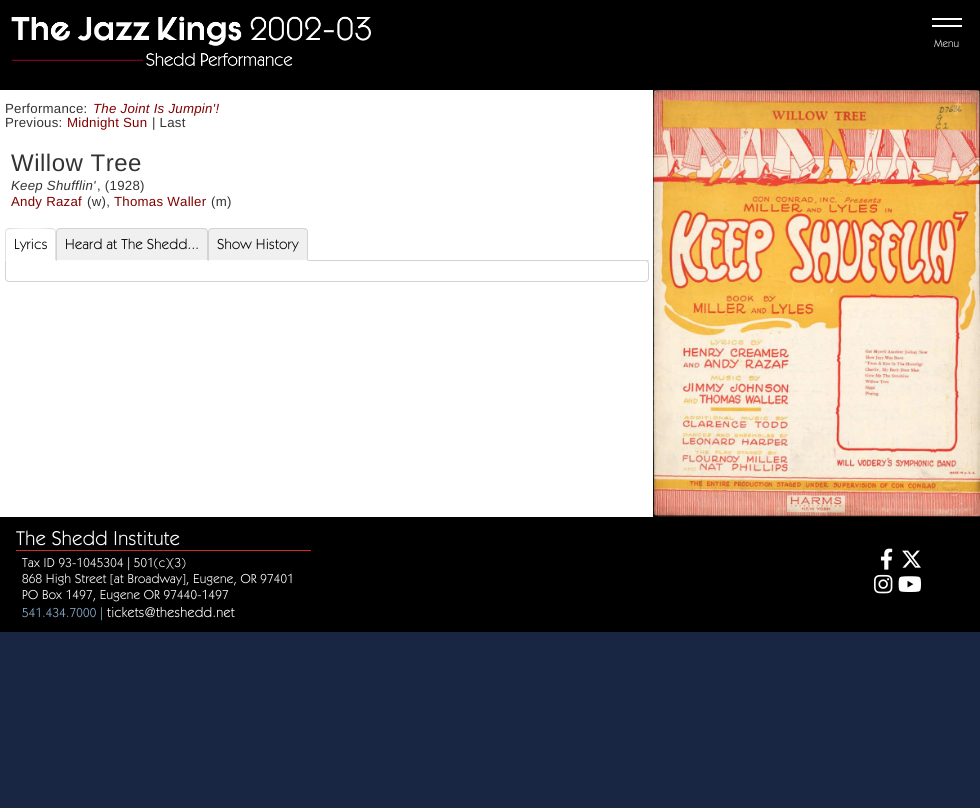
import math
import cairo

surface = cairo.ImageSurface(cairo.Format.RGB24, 980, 808)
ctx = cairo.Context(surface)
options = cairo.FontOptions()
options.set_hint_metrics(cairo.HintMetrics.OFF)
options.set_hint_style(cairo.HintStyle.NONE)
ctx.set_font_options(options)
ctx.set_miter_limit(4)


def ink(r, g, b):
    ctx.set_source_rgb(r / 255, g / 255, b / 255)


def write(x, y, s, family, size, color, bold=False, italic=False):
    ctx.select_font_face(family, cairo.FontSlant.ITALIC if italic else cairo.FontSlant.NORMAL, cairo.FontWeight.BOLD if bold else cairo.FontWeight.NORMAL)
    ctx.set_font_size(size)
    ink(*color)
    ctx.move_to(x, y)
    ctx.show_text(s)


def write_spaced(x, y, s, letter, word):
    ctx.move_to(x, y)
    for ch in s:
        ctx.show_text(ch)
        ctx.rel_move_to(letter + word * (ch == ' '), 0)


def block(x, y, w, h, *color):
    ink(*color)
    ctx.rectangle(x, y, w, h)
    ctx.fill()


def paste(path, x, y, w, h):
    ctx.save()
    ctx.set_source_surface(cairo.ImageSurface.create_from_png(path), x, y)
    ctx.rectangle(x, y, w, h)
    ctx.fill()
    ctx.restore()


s1 = dict(family="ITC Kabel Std", size=11, color=(230, 230, 230))

ink(24, 37, 67)
ctx.paint()
block(0, 0, 980, 90, 0, 0, 0)
paste("pic1.png", 11, 16, 360, 50)
block(932, 18, 30, 2, 255, 255, 255)
block(932, 25, 30, 2, 255, 255, 255)
write(934, 47, "Menu", **s1)
block(0, 90, 653, 427, 255, 255, 255)
ctx.select_font_face("Liberation Sans")
ctx.set_font_size(13.25)
ink(51, 51, 51)
write_spaced(5, 113, "Performance:", 0.25, 0)
ctx.select_font_face("Liberation Sans", cairo.FontSlant.ITALIC)
ink(128, 0, 0)
write_spaced(93, 113, "The Joint Is Jumpin'!", 0.25, 0)
ctx.select_font_face("Liberation Sans")
ink(51, 51, 51)
write_spaced(5, 127, "Previous:", 0.25, 0)
ink(128, 0, 0)
write_spaced(67, 127, "Midnight Sun", 0.25, 0)
ink(51, 51, 51)
write_spaced(152, 127, "| Last", 0.25, 0)
ctx.set_font_size(24)
write_spaced(11, 171, "Willow Tree", 0.5, 0)
ctx.select_font_face("Liberation Sans", cairo.FontSlant.ITALIC)
ctx.set_font_size(13.25)
write_spaced(11, 190, "Keep Shufflin'", 0.25, 0)
ctx.select_font_face("Liberation Sans")
write_spaced(97, 190, ", (1928)", 0.25, 0)
ink(128, 0, 0)
write_spaced(11, 206, "Andy Razaf", 0.25, 0)
ink(51, 51, 51)
write_spaced(87, 206, "(w),", 0.25, 0)
ink(128, 0, 0)
write_spaced(114, 206, "Thomas Waller", 0.25, 0)
ink(51, 51, 51)
write_spaced(211, 206, "(m)", 0.25, 0)
block(645, 260, 4, 1, 222, 226, 230)
ctx.new_path()
ctx.move_to(5.5, 260.5)
ctx.line_to(645, 260.5)
ctx.curve_to(647, 260.5, 648.5, 262, 648.5, 264)
ctx.line_to(648.5, 278)
ctx.curve_to(648.5, 280, 647, 281.5, 645, 281.5)
ctx.line_to(9, 281.5)
ctx.curve_to(7, 281.5, 5.5, 280, 5.5, 278)
ctx.close_path()
ink(211, 211, 211)
ctx.set_line_width(1)
ctx.stroke()
ink(255, 255, 255)
ctx.new_path()
ctx.move_to(9, 228)
ctx.line_to(52, 228)
ctx.curve_to(54, 228, 56, 230, 56, 232)
ctx.line_to(56, 261)
ctx.line_to(5, 261)
ctx.line_to(5, 232)
ctx.curve_to(5, 230, 7, 228, 9, 228)
ctx.close_path()
ctx.fill()
ink(222, 226, 230)
ctx.new_path()
ctx.move_to(9, 228)
ctx.line_to(6, 229)
ctx.line_to(7, 230)
ctx.curve_to(8, 228, 53, 228, 54, 230)
ctx.line_to(55, 229)
ctx.line_to(52, 228)
ctx.close_path()
ctx.fill()
ctx.new_path()
ctx.move_to(56, 261)
ctx.line_to(56, 232)
ctx.curve_to(56, 231, 55.5, 230, 55, 229)
ctx.line_to(54, 230)
ctx.curve_to(55, 230, 55, 231, 55, 232)
ctx.line_to(55, 260)
ctx.close_path()
ctx.fill()
ink(255, 255, 255)
ctx.new_path()
ctx.move_to(56, 261)
ctx.line_to(55, 260)
ctx.line_to(6, 260)
ctx.line_to(5, 261)
ctx.close_path()
ctx.fill()
ink(222, 226, 230)
ctx.new_path()
ctx.move_to(5, 261)
ctx.line_to(6, 260)
ctx.line_to(6, 232)
ctx.curve_to(6, 231, 6, 230, 7, 230)
ctx.line_to(6, 229)
ctx.curve_to(5.5, 230, 5, 231, 5, 232)
ctx.close_path()
ctx.fill()
ctx.select_font_face("ITC Kabel Std")
ctx.set_font_size(14.5)
ink(0, 0, 0)
write_spaced(14, 249, "Lyrics", 0.25, 0)
ink(240, 240, 240)
ctx.new_path()
ctx.move_to(60, 228)
ctx.line_to(204, 228)
ctx.curve_to(206, 228, 208, 230, 208, 232)
ctx.line_to(208, 261)
ctx.line_to(56, 261)
ctx.line_to(56, 232)
ctx.curve_to(56, 230, 58, 228, 60, 228)
ctx.close_path()
ctx.fill()
ink(211, 211, 211)
ctx.new_path()
ctx.move_to(60, 228)
ctx.line_to(57, 229)
ctx.line_to(58, 230)
ctx.line_to(60, 229)
ctx.line_to(204, 229)
ctx.line_to(206, 230)
ctx.line_to(207, 229)
ctx.line_to(204, 228)
ctx.close_path()
ctx.fill()
ctx.new_path()
ctx.move_to(208, 261)
ctx.line_to(208, 232)
ctx.curve_to(208, 231, 207.5, 230, 207, 229)
ctx.line_to(206, 230)
ctx.curve_to(207, 230, 207, 231, 207, 232)
ctx.line_to(207, 260)
ctx.close_path()
ctx.fill()
ink(255, 255, 255)
ctx.new_path()
ctx.move_to(208, 261)
ctx.line_to(207, 260)
ctx.line_to(57, 260)
ctx.line_to(56, 261)
ctx.close_path()
ctx.fill()
ink(211, 211, 211)
ctx.new_path()
ctx.move_to(56, 261)
ctx.line_to(57, 260)
ctx.line_to(57, 232)
ctx.curve_to(57, 231, 57, 230, 58, 230)
ctx.line_to(57, 229)
ctx.curve_to(56.5, 230, 56, 231, 56, 232)
ctx.close_path()
ctx.fill()
ink(0, 0, 0)
write_spaced(65, 249, "Heard at The Shedd...", 0.25, 0)
ink(240, 240, 240)
ctx.new_path()
ctx.move_to(212, 228)
ctx.line_to(304, 228)
ctx.curve_to(306, 228, 308, 230, 308, 232)
ctx.line_to(308, 261)
ctx.line_to(208, 261)
ctx.line_to(208, 232)
ctx.curve_to(208, 230, 210, 228, 212, 228)
ctx.close_path()
ctx.fill()
ink(211, 211, 211)
ctx.new_path()
ctx.move_to(212, 228)
ctx.line_to(209, 229)
ctx.line_to(210, 230)
ctx.line_to(212, 229)
ctx.line_to(304, 229)
ctx.line_to(306, 230)
ctx.line_to(307, 229)
ctx.line_to(304, 228)
ctx.close_path()
ctx.fill()
ctx.new_path()
ctx.move_to(308, 261)
ctx.line_to(308, 232)
ctx.curve_to(308, 231, 307.5, 230, 307, 229)
ctx.line_to(306, 230)
ctx.curve_to(307, 230, 307, 231, 307, 232)
ctx.line_to(307, 260)
ctx.close_path()
ctx.fill()
ink(255, 255, 255)
ctx.new_path()
ctx.move_to(308, 261)
ctx.line_to(307, 260)
ctx.line_to(209, 260)
ctx.line_to(208, 261)
ctx.close_path()
ctx.fill()
ink(211, 211, 211)
ctx.new_path()
ctx.move_to(208, 261)
ctx.line_to(209, 260)
ctx.line_to(209, 232)
ctx.curve_to(209, 231, 209, 230, 210, 230)
ctx.line_to(209, 229)
ctx.curve_to(208.5, 230, 208, 231, 208, 232)
ctx.close_path()
ctx.fill()
ink(0, 0, 0)
write_spaced(217, 249, "Show History", 0.25, 0)
paste("pic2.png", 653, 90, 327, 427)
block(0, 517, 980, 115, 0, 0, 0)
block(16, 550, 295, 1, 217, 38, 42)
ctx.set_font_size(20)
ink(255, 255, 255)
write_spaced(16, 545, "The Shedd Institute", 0.4, 0)
ctx.set_font_size(13)
write_spaced(22, 567, "Tax ID 93-1045304 | 501(c)(3)", 0.25, 0)
write_spaced(22, 583, "868 High Street [at Broadway], Eugene, OR 97401", 0.25, 0)
write_spaced(22, 599, "PO Box 1497, Eugene OR 97440-1497", 0.25, 0)
ink(142, 180, 211)
write_spaced(22, 617, "541.434.7000 |", 0.25, 0)
ctx.set_font_size(14)
ink(255, 255, 255)
write_spaced(107, 617, "tickets@theshedd.net", 0.25, 0)
paste("pic3.png", 880, 548, 13, 22)
paste("pic4.png", 902, 550, 19, 18)
paste("pic5.png", 874, 574, 19, 20)
paste("pic6.png", 898, 576, 23, 16)
surface.write_to_png("screenshot.png")
